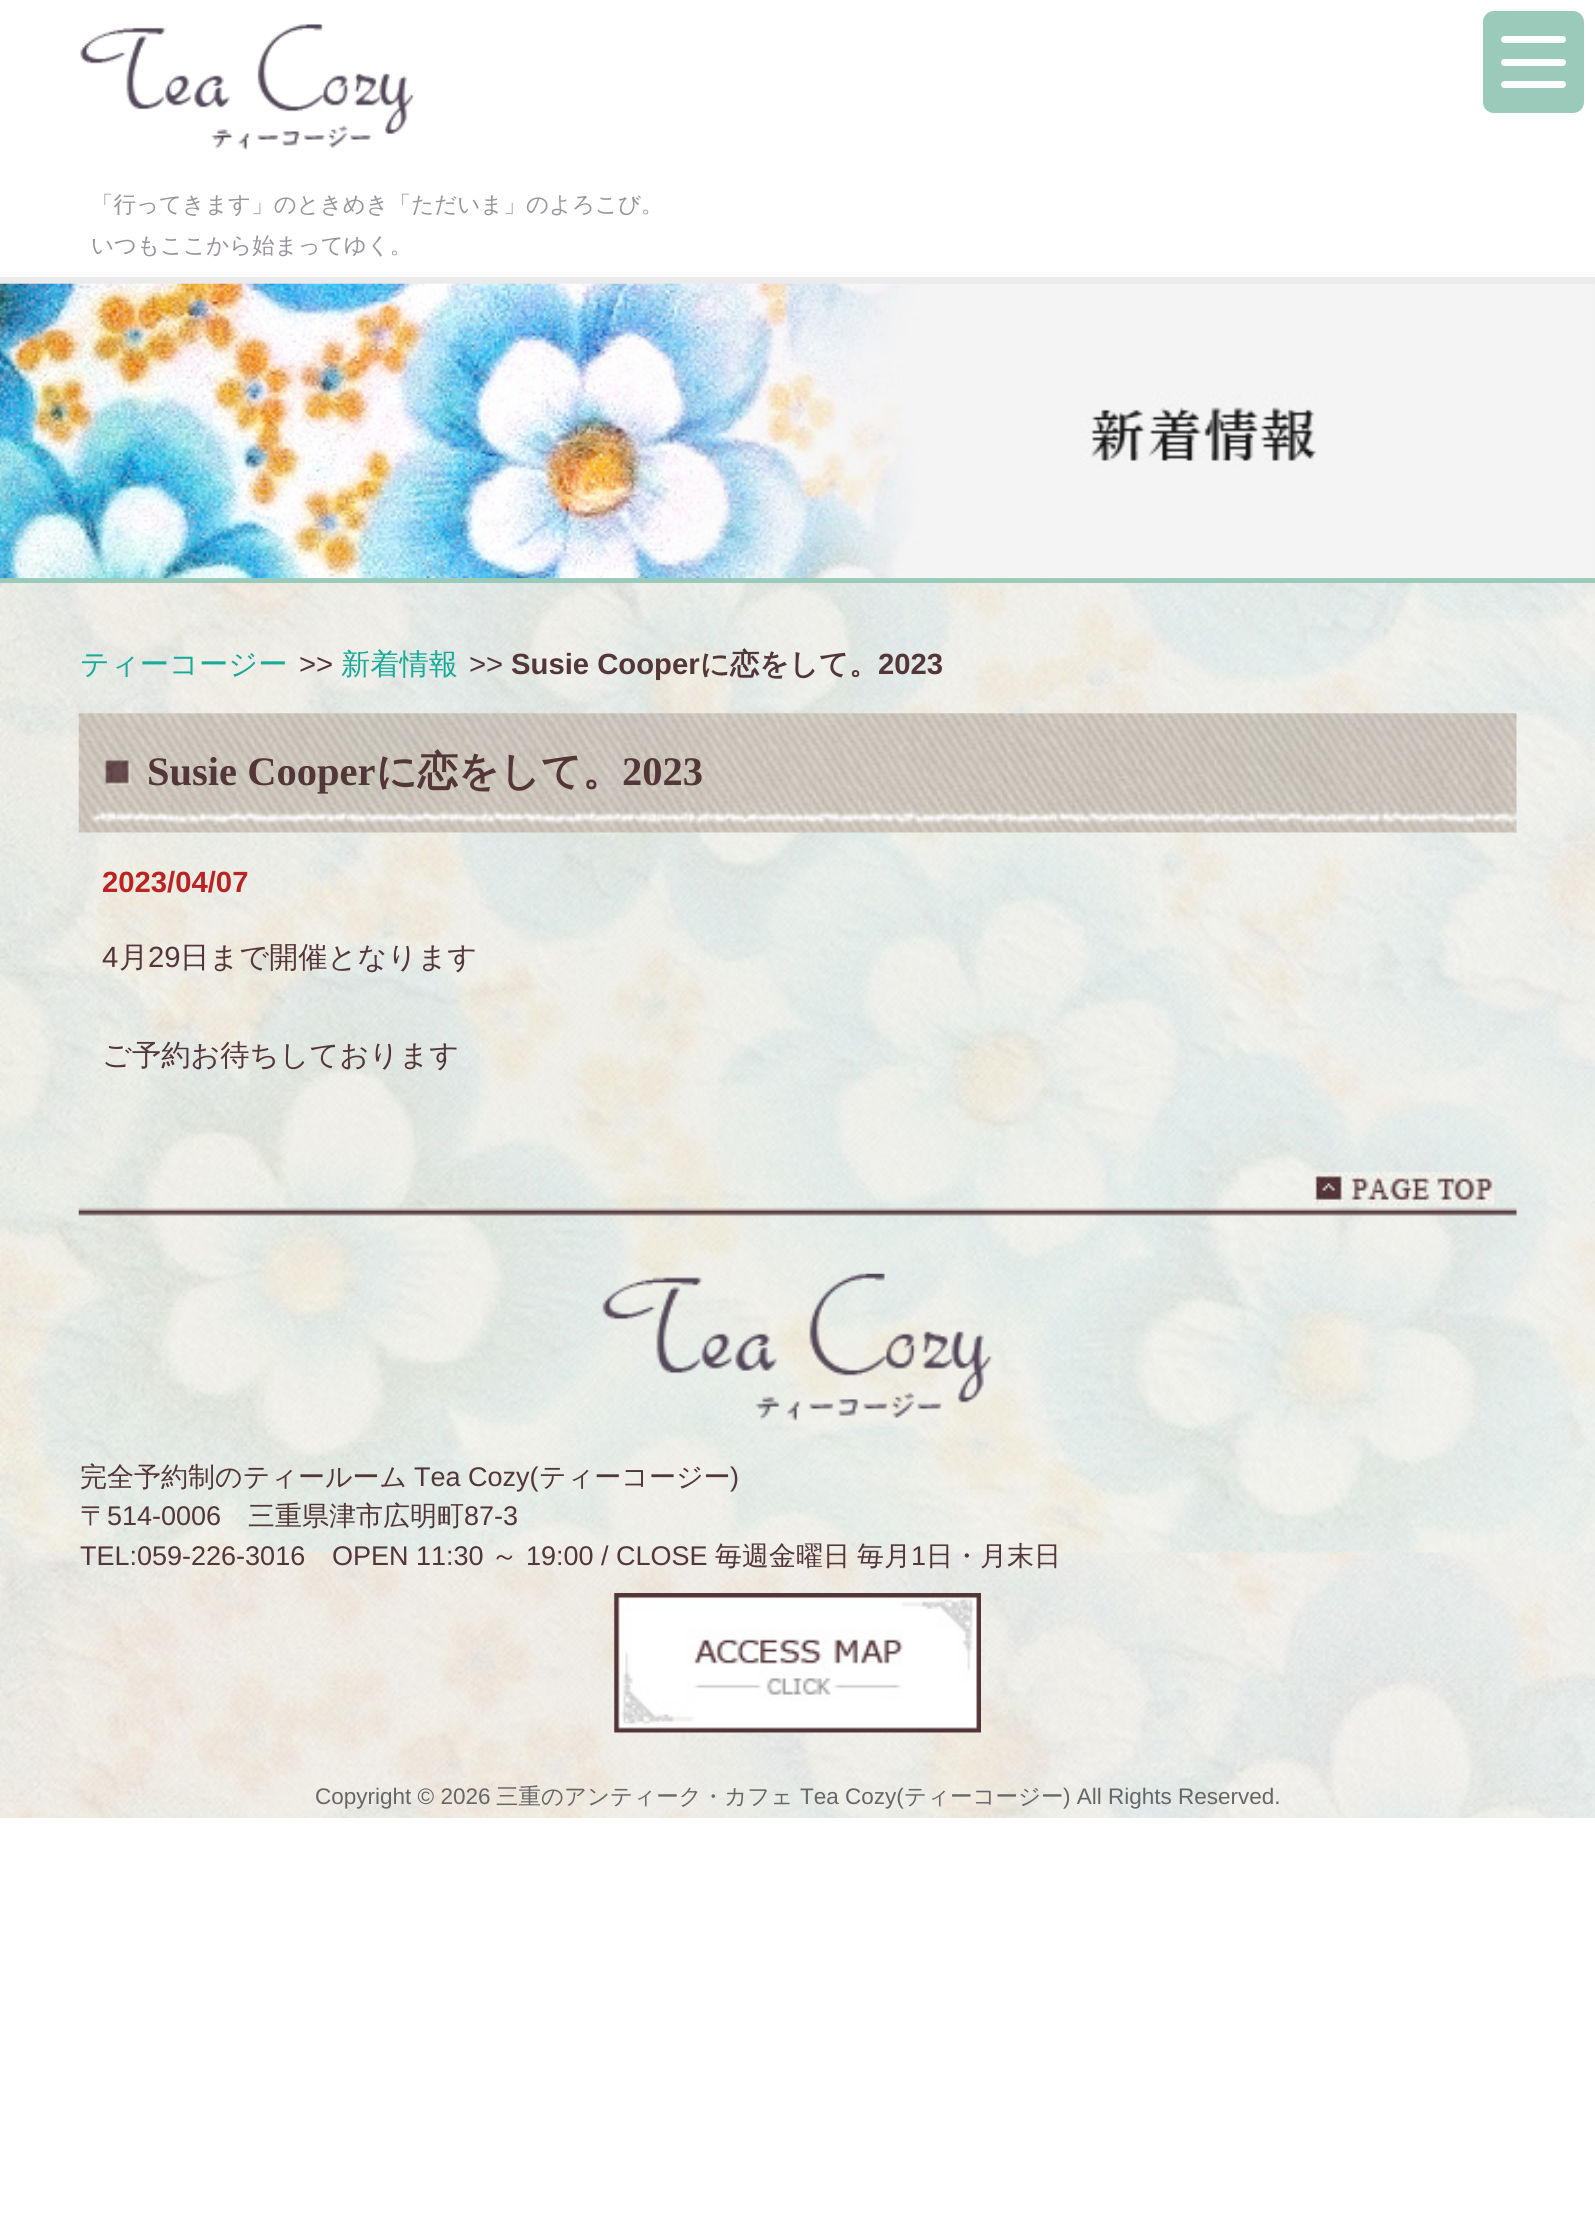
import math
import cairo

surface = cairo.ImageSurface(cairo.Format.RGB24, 1595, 2235)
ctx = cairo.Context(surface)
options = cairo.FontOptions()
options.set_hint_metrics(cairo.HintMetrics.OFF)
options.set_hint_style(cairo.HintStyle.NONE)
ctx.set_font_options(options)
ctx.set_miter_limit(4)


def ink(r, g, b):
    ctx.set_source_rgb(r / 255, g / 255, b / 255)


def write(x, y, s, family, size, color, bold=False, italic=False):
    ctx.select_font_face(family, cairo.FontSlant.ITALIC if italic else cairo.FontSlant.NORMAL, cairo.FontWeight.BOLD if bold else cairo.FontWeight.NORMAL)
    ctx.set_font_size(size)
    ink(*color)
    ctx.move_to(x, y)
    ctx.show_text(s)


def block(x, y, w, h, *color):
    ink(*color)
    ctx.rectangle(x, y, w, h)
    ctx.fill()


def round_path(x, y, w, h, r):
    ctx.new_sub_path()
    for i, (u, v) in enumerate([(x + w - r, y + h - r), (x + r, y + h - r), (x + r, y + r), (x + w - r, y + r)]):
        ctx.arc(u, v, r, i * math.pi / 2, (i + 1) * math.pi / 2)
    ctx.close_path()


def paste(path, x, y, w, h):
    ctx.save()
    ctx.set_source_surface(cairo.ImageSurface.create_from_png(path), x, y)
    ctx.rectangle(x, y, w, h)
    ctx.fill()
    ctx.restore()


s1 = dict(family="WenQuanYi Zen Hei Medium", size=22.5, color=(153, 146, 156))
s2 = dict(family="WenQuanYi Zen Hei Medium", size=29.25, color=(23, 170, 153))
s3 = dict(family="Liberation Sans", size=29.25, color=(83, 54, 56))
s4 = dict(family="Liberation Sans", size=29.25, color=(83, 54, 56), bold=True)
s5 = dict(family="WenQuanYi Zen Hei", size=29.25, color=(83, 54, 56), bold=True)
s6 = dict(family="Liberation Serif", size=40.5, color=(83, 54, 56), bold=True)
s7 = dict(family="WenQuanYi Zen Hei", size=40.5, color=(83, 54, 56), bold=True)
s8 = dict(family="Liberation Sans", size=29.25, color=(187, 35, 35), bold=True)
s9 = dict(family="WenQuanYi Zen Hei Medium", size=29.25, color=(83, 54, 56))
s10 = dict(family="WenQuanYi Zen Hei Medium", size=27, color=(83, 54, 56))
s11 = dict(family="Liberation Sans", size=27, color=(83, 54, 56))
s12 = dict(family="Liberation Sans", size=22.5, color=(102, 102, 102))
s13 = dict(family="WenQuanYi Zen Hei Medium", size=22.5, color=(102, 102, 102))

ink(255, 255, 255)
ctx.paint()
ink(154, 202, 186)
round_path(1483, 11, 101, 102, 11)
ctx.fill()
ink(255, 255, 255)
round_path(1501, 36, 65, 7, 3.5)
ctx.fill()
round_path(1501, 59, 65, 7, 3.5)
ctx.fill()
round_path(1501, 81, 65, 7, 3.5)
ctx.fill()
paste("pic1.png", 0, 583, 1595, 1235)
paste("pic2.png", 80, 24, 335, 126)
write(91, 212, "「行ってきます」のときめき「ただいま」のよろこび。", **s1)
write(91, 253, "いつもここから始まってゆく。", **s1)
block(0, 277, 1595, 7, 235, 235, 235)
block(0, 578, 1595, 5, 154, 202, 186)
paste("pic3.png", 0, 283, 1595, 296)
paste("pic4.png", 78, 1207, 1439, 9)
write(80, 674, "ティーコージー", **s2)
write(299, 674, ">>", **s3)
write(341, 674, "新着情報", **s2)
write(469, 674, ">>", **s3)
write(511, 674, "Susie Cooper", **s4)
write(700, 674, "に恋をして。", **s5)
write(878, 674, "2023", **s4)
paste("pic5.png", 78, 713, 1439, 120)
write(147, 785, "Susie Cooper", **s6)
write(376, 785, "に恋をして。", **s7)
write(622, 785, "2023", **s6)
write(102, 892, "2023/04/07", **s8)
write(102, 967, "4", **s3)
write(119, 967, "月", **s9)
write(148, 967, "29", **s3)
write(180, 967, "日まで開催となります", **s9)
write(102, 1065, "ご予約お待ちしております", **s9)
paste("pic6.png", 1314, 1172, 180, 34)
paste("pic7.png", 602, 1273, 391, 148)
write(80, 1486, "完全予約制のティールーム", **s10)
write(414, 1486, "Tea Cozy(", **s11)
write(539, 1486, "ティーコージー", **s10)
write(730, 1486, ")", **s11)
write(80, 1525, "〒", **s10)
write(107, 1525, "514-0006", **s11)
write(248, 1525, "三重県津市広明町", **s10)
write(464, 1525, "87-3", **s11)
write(80, 1565, "TEL:059-226-3016", **s11)
write(332, 1565, "OPEN 11:30", **s11)
write(491, 1565, "～", **s10)
write(526, 1565, "19:00 / CLOSE", **s11)
write(715, 1565, "毎週金曜日", **s10)
write(857, 1565, "毎月", **s10)
write(911, 1565, "1", **s11)
write(926, 1565, "日・月末日", **s10)
paste("pic8.png", 614, 1593, 367, 140)
write(315, 1804, "Copyright © 2026", **s12)
write(496, 1804, "三重のアンティーク・カフェ", **s13)
write(800, 1804, "Tea Cozy(", **s12)
write(904, 1804, "ティーコージー", **s13)
write(1063, 1804, ") All Rights Reserved.", **s12)
surface.write_to_png("screenshot.png")
